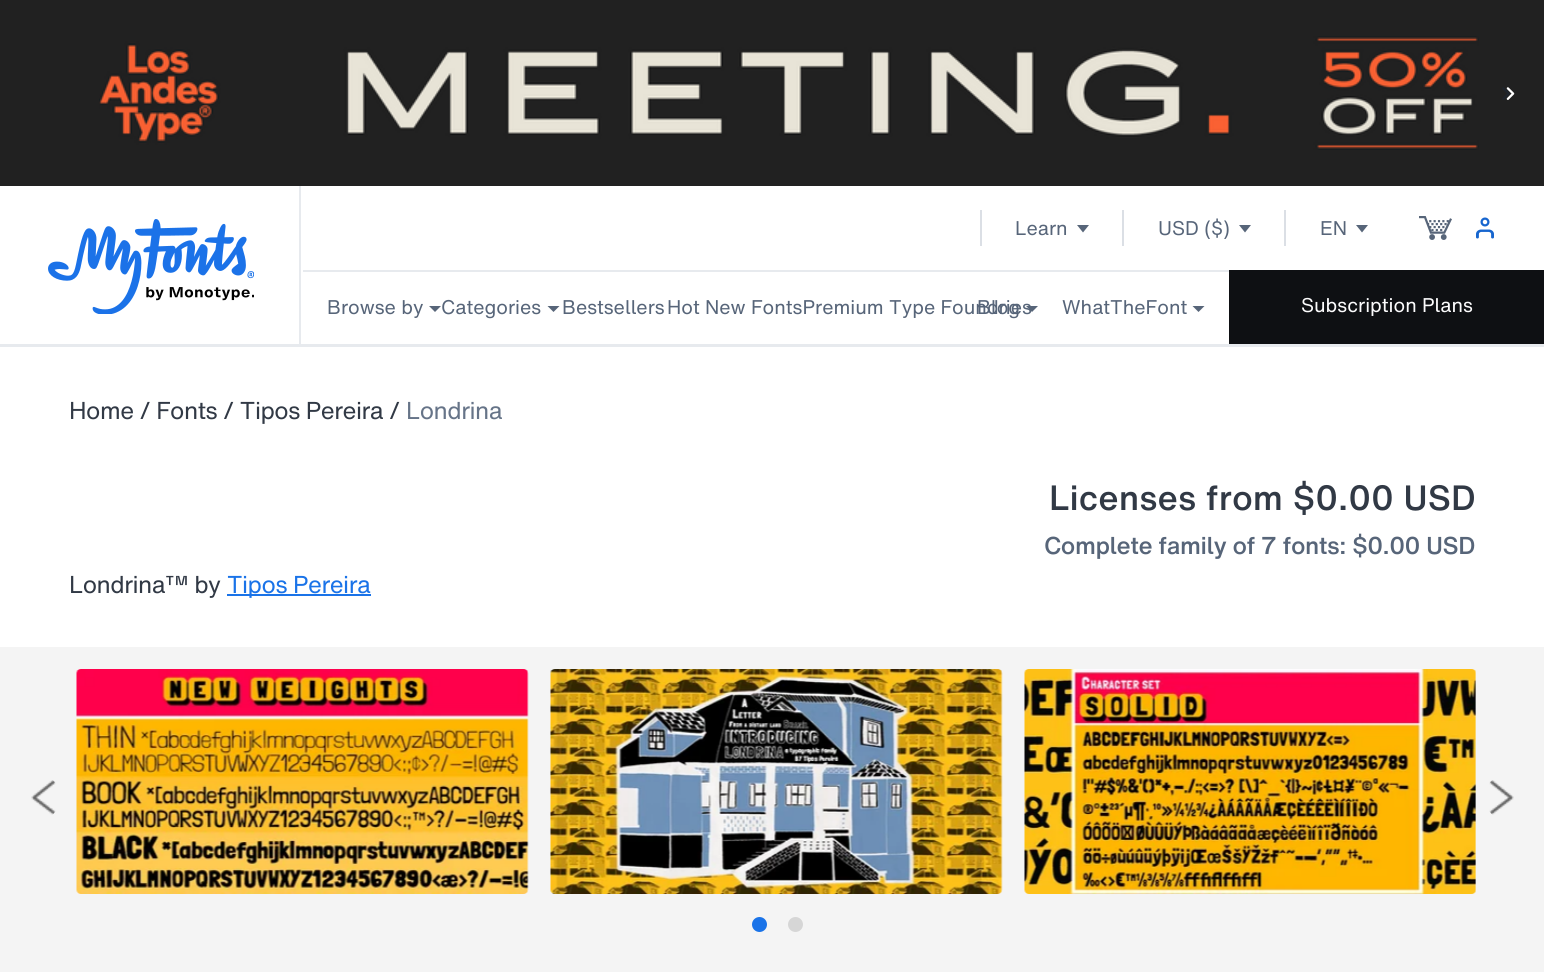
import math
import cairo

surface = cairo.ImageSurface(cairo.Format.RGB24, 1544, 972)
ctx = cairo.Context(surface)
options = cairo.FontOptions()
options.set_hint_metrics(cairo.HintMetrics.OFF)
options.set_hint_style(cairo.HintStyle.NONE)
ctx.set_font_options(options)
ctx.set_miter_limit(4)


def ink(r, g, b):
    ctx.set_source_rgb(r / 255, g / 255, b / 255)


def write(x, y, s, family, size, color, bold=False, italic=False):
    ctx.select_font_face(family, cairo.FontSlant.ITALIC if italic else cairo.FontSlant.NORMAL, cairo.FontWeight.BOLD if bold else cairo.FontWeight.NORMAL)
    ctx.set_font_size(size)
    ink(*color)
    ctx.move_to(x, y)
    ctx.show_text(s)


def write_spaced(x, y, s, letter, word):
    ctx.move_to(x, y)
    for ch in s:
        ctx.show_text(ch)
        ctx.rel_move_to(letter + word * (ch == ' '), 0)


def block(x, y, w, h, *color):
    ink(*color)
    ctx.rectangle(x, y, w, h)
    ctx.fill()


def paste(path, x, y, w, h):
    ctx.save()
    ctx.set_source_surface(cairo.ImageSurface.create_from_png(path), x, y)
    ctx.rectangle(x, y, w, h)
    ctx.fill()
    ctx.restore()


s1 = dict(family="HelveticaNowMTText", size=19.5, color=(87, 101, 121))
s2 = dict(family="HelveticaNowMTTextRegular", size=19.5, color=(87, 101, 121))
s3 = dict(family="HelveticaNowMTTextRegular", size=19.5, color=(252, 252, 253))
s4 = dict(family="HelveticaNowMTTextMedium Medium", size=34.5, color=(49, 57, 69))

ink(255, 255, 255)
ctx.paint()
block(0, 344, 1544, 3, 231, 234, 238)
block(0, 0, 1544, 186, 33, 33, 33)
paste("pic1.png", 99, 36, 1380, 114)
paste("pic2.png", 1502, 87, 13, 13)
block(299, 186, 2, 158, 231, 234, 238)
paste("pic3.png", 48, 219, 206, 95)
block(980, 210, 2, 36, 219, 223, 229)
write(1015, 235, "Learn", **s1)
ctx.new_path()
ctx.move_to(1077, 225)
ctx.line_to(1089, 225)
ctx.line_to(1083, 232.5)
ctx.close_path()
ctx.fill()
block(1122, 210, 2, 36, 219, 223, 229)
write(1158, 235, "USD ($)", **s1)
ctx.new_path()
ctx.move_to(1239, 225)
ctx.line_to(1251, 225)
ctx.line_to(1245, 232.5)
ctx.close_path()
ctx.fill()
block(1284, 210, 2, 36, 219, 223, 229)
write(1320, 235, "EN", **s1)
ctx.new_path()
ctx.move_to(1356, 225)
ctx.line_to(1368, 225)
ctx.line_to(1362, 232.5)
ctx.close_path()
ctx.fill()
paste("pic4.png", 1419, 216, 33, 24)
paste("pic5.png", 1476, 217, 18, 22)
block(303, 270, 926, 2, 231, 234, 238)
write(327, 314, "Browse by", **s2)
ctx.new_path()
ctx.move_to(429, 306)
ctx.line_to(441, 306)
ctx.line_to(435, 312)
ctx.close_path()
ctx.fill()
write(441, 314, "Categories", **s2)
ctx.new_path()
ctx.move_to(547.5, 306)
ctx.line_to(559.5, 306)
ctx.line_to(553.5, 312)
ctx.close_path()
ctx.fill()
write(562, 314, "Bestsellers", **s2)
write(667, 314, "Hot New FontsPremium Type Foundries", **s2)
write(977, 314, "Blog", **s2)
ctx.new_path()
ctx.move_to(1026, 306)
ctx.line_to(1038, 306)
ctx.line_to(1032, 312)
ctx.close_path()
ctx.fill()
write(1062, 314, "WhatTheFont", **s2)
ctx.new_path()
ctx.move_to(1192.5, 306)
ctx.line_to(1204.5, 306)
ctx.line_to(1198.5, 312)
ctx.close_path()
ctx.fill()
block(1229, 270, 315, 74, 14, 16, 19)
write(1301, 312, "Subscription Plans", **s3)
ctx.set_font_size(24)
ink(49, 57, 69)
write_spaced(69, 419, "Home / Fonts / Tipos Pereira /", -0.5, 0)
ink(102, 116, 136)
write_spaced(406, 419, "Londrina", -0.5, 0)
write(1049, 510, "Licenses from $0.00 USD", **s4)
ctx.set_font_size(24)
ink(87, 101, 121)
write_spaced(1044, 554, "Complete family of 7 fonts: $0.00 USD", -0.5, 0)
ctx.select_font_face("HelveticaNowMTText")
ink(49, 57, 69)
write_spaced(69, 593, "Londrina™ by", -0.5, 0)
block(227, 594, 144, 2, 26, 115, 232)
write_spaced(227, 593, "Tipos Pereira", -0.5, 0)
block(0, 647, 1544, 325, 244, 244, 244)
paste("pic6.png", 76, 669, 453, 225)
paste("pic7.png", 550, 669, 453, 225)
paste("pic8.png", 1024, 669, 452, 225)
paste("pic9.png", 31, 780, 25, 35)
paste("pic10.png", 1489, 780, 25, 35)
ink(26, 115, 232)
ctx.arc(759.5, 924.5, 7.5, 0, 2 * math.pi)
ctx.fill()
ink(214, 214, 214)
ctx.arc(795.5, 924.5, 7.5, 0, 2 * math.pi)
ctx.fill()
surface.write_to_png("screenshot.png")
